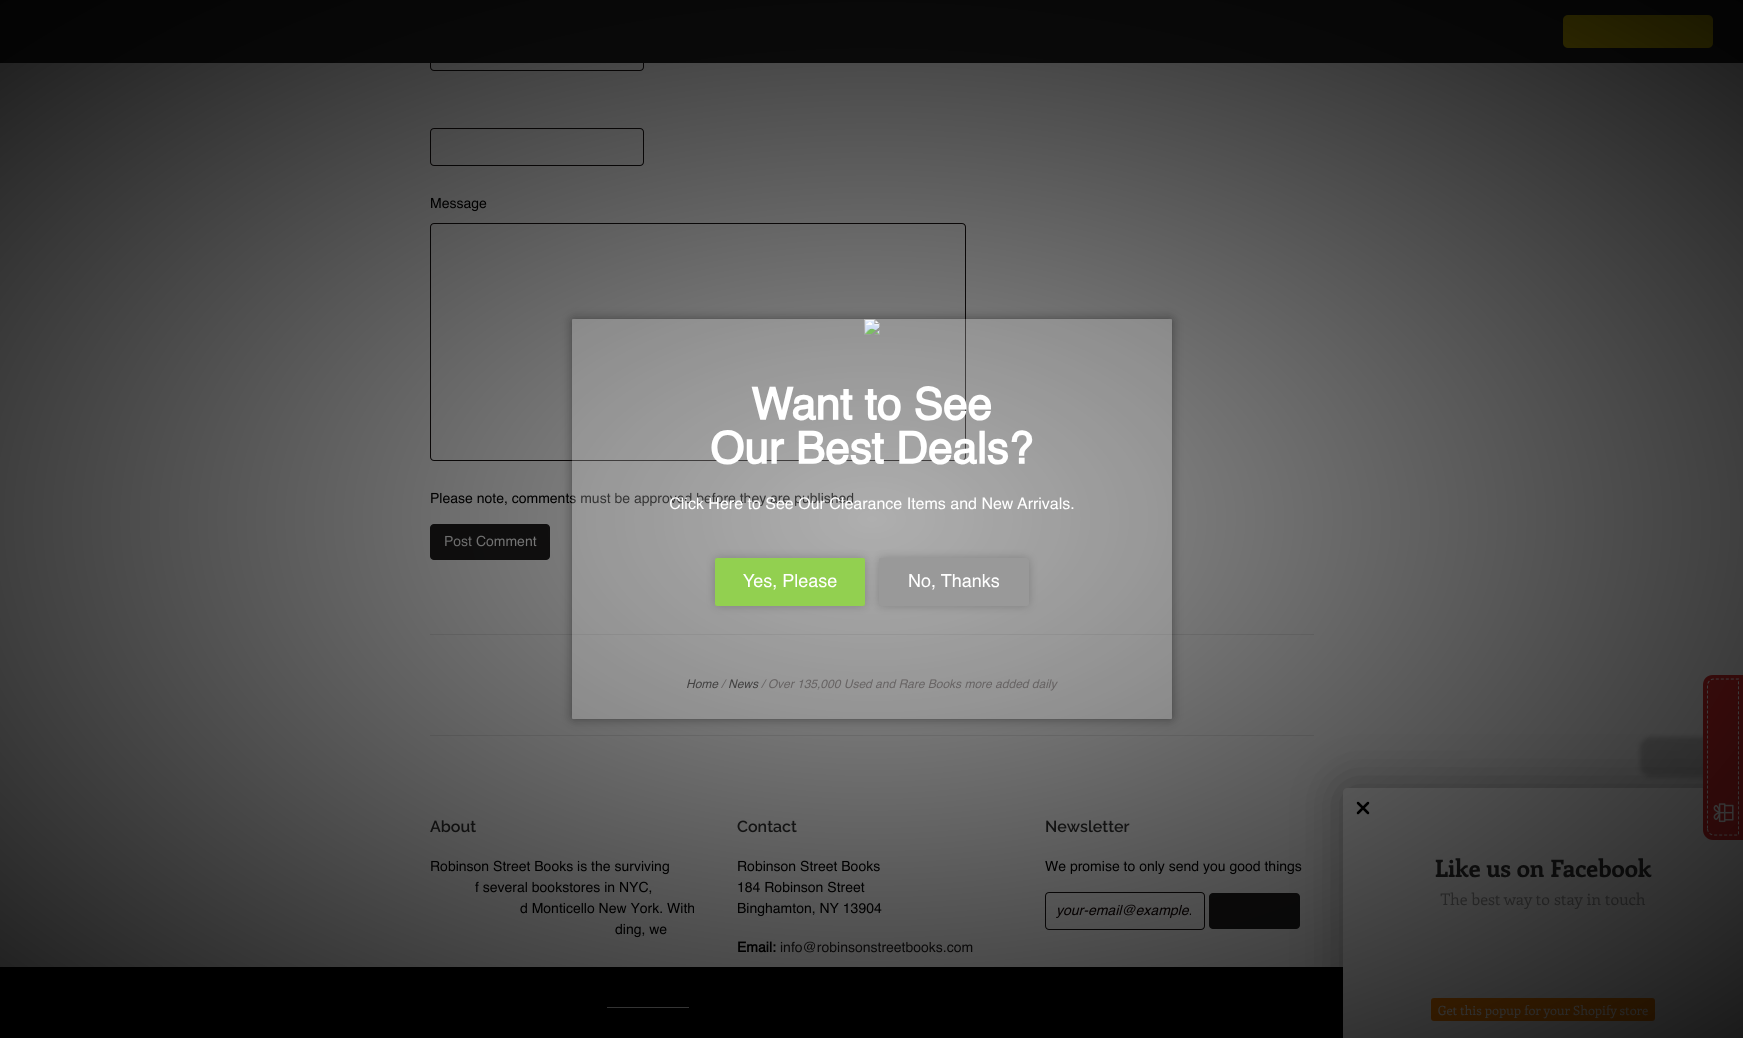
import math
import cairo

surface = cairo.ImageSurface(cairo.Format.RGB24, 1743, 1038)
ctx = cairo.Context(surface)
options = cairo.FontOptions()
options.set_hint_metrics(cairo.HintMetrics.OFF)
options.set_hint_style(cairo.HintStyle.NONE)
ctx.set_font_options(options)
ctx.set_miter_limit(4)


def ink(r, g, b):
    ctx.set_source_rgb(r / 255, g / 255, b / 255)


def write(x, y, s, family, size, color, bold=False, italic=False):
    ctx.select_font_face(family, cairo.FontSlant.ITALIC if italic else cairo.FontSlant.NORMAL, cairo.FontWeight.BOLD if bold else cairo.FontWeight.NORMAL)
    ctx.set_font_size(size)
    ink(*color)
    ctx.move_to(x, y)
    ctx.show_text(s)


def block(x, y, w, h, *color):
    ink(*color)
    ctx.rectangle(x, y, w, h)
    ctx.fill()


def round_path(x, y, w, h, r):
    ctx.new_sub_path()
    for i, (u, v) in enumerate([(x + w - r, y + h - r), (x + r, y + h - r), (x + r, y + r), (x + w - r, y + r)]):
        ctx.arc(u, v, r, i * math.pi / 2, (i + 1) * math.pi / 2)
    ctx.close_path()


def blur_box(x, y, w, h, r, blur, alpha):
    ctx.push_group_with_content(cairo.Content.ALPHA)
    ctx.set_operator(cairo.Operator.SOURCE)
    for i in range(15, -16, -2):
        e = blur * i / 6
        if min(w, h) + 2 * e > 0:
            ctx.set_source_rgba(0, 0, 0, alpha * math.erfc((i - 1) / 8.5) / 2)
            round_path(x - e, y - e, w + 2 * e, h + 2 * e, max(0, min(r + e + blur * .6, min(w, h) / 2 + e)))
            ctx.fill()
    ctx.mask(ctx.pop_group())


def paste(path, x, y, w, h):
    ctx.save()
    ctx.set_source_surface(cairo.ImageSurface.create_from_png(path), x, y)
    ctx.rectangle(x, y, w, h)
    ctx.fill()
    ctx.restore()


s1 = dict(family="Helvetica", size=14, color=(0, 0, 0))
s2 = dict(family="Helvetica", size=14, color=(255, 255, 255))
s3 = dict(family="Helvetica", size=12, color=(33, 31, 31), italic=True)
s4 = dict(family="Helvetica", size=12, color=(128, 119, 119), italic=True)
s5 = dict(family="Raleway Thin", size=16, color=(51, 51, 51))
s6 = dict(family="Helvetica", size=14, color=(0, 0, 0), bold=True)
s7 = dict(family="Helvetica", size=14, color=(33, 31, 31))
s8 = dict(family="Helvetica", size=14, color=(18, 6, 6), italic=True)

ink(255, 255, 255)
ctx.paint()
round_path(430.5, 33.5, 213, 37, 3.5)
ink(24, 18, 18)
ctx.set_line_width(1)
ctx.stroke()
block(0, 0, 1743, 63, 34, 34, 34)
ink(241, 214, 0)
round_path(1563, 15, 150, 33, 5)
ctx.fill()
ink(0, 0, 0)
blur_box(1640, 737, 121, 40, 10, 2.5, 0.2)
block(430, 735, 884, 1, 232, 232, 232)
ink(33, 31, 31)
round_path(1209, 893, 91, 36, 4)
ctx.fill()
block(0, 967, 1343, 71, 0, 0, 0)
ink(0, 0, 0)
blur_box(1343, 788, 400, 250, 4, 25, 0.35)
ink(255, 255, 255)
ctx.new_path()
ctx.move_to(1347, 788)
ctx.line_to(1743, 788)
ctx.line_to(1743, 1038)
ctx.line_to(1343, 1038)
ctx.line_to(1343, 792)
ctx.curve_to(1343, 790, 1345, 788, 1347, 788)
ctx.close_path()
ctx.fill()
ink(219, 44, 44)
ctx.new_path()
ctx.move_to(1703, 830)
ctx.line_to(1703, 685)
ctx.curve_to(1703, 679, 1707, 675, 1713, 675)
ctx.line_to(1743, 675)
ctx.line_to(1743, 840)
ctx.line_to(1713, 840)
ctx.curve_to(1707, 840, 1703, 835, 1703, 830)
ctx.close_path()
ctx.fill()
ctx.new_path()
ctx.move_to(1707.5, 828.5)
ctx.line_to(1707.5, 685.5)
ctx.curve_to(1707.5, 682, 1710.5, 679, 1714, 679)
ctx.line_to(1738.5, 679)
ctx.line_to(1738.5, 835)
ctx.line_to(1714, 835)
ctx.curve_to(1710.5, 835, 1707.5, 832.5, 1707.5, 828.5)
ctx.close_path()
ink(255, 255, 255)
ctx.set_dash([3, 2])
ctx.stroke()
paste("pic2.png", 1713, 803, 21, 20)
round_path(430.5, 128.5, 213, 37, 3.5)
ink(24, 18, 18)
ctx.set_dash([])
ctx.stroke()
write(430, 208, "Message", **s1)
round_path(430.5, 223.5, 535, 237, 3.5)
ink(24, 18, 18)
ctx.stroke()
write(430, 503, "Please note, comments must be approved before they are published", **s1)
ink(33, 31, 31)
round_path(430, 524, 120, 36, 4)
ctx.fill()
write(444, 546, "Post Comment", **s2)
block(430, 634, 884, 1, 232, 232, 232)
write(686, 688, "Home", **s3)
write(721, 688, "/", **s4)
write(728, 688, "News", **s3)
write(761, 688, "/ Over 135,000 Used and Rare Books more added daily", **s4)
write(430, 832, "About", **s5)
write(430, 871, "Robinson Street Books is the surviving", **s1)
write(475, 892, "f several bookstores in NYC,", **s1)
write(520, 913, "d Monticello New York. With", **s1)
write(615, 934, "ding, we", **s1)
write(737, 832, "Contact", **s5)
write(737, 871, "Robinson Street Books", **s1)
write(737, 892, "184 Robinson Street", **s1)
write(737, 913, "Binghamton, NY 13904", **s1)
write(737, 952, "Email:", **s6)
write(780, 952, "info@robinsonstreetbooks.com", **s7)
write(1045, 832, "Newsletter", **s5)
write(1045, 871, "We promise to only send you good things", **s1)
round_path(1045.5, 892.5, 159, 37, 3.5)
ink(24, 18, 18)
ctx.stroke()
write(1056, 915, "your-email@example.", **s8)
paste("pic3.png", 1356, 801, 299, 220)
block(607, 1007, 82, 1, 204, 204, 204)
gradient = cairo.RadialGradient(0, 0, 0, 0, 0, 1)
gradient.set_matrix(cairo.Matrix(1 / 1232, 0, 0, 1 / 734, -1 * 872 / 1232, -1 * 519 / 734))
gradient.add_color_stop_rgba(0, 0, 0, 0, 0.4)
gradient.add_color_stop_rgba(1, 0, 0, 0, 0.9)
ctx.set_source(gradient)
ctx.rectangle(0, 0, 1743, 1038)
ctx.fill()
ctx.save()
ctx.set_fill_rule(cairo.FillRule.EVEN_ODD)
ctx.new_path()
ctx.move_to(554, 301)
ctx.line_to(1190, 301)
ctx.line_to(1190, 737)
ctx.line_to(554, 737)
ctx.close_path()
ctx.move_to(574, 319)
ctx.line_to(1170, 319)
ctx.curve_to(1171, 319, 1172, 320, 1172, 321)
ctx.line_to(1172, 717)
ctx.curve_to(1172, 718, 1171, 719, 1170, 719)
ctx.line_to(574, 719)
ctx.curve_to(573, 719, 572, 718, 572, 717)
ctx.line_to(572, 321)
ctx.curve_to(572, 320, 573, 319, 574, 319)
ctx.close_path()
ctx.clip()
ink(0, 0, 0)
blur_box(572, 319, 600, 400, 2, 5.5, 0.4)
ctx.restore()
paste("pic1.png", 572, 319, 600, 400)
surface.write_to_png("screenshot.png")
